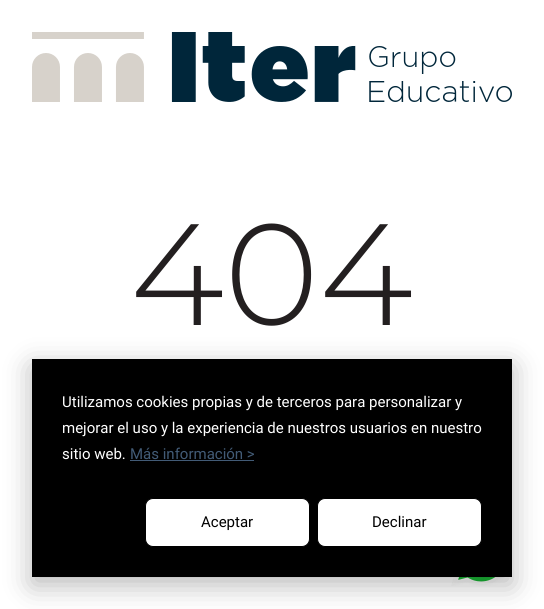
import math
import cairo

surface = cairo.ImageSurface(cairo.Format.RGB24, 544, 609)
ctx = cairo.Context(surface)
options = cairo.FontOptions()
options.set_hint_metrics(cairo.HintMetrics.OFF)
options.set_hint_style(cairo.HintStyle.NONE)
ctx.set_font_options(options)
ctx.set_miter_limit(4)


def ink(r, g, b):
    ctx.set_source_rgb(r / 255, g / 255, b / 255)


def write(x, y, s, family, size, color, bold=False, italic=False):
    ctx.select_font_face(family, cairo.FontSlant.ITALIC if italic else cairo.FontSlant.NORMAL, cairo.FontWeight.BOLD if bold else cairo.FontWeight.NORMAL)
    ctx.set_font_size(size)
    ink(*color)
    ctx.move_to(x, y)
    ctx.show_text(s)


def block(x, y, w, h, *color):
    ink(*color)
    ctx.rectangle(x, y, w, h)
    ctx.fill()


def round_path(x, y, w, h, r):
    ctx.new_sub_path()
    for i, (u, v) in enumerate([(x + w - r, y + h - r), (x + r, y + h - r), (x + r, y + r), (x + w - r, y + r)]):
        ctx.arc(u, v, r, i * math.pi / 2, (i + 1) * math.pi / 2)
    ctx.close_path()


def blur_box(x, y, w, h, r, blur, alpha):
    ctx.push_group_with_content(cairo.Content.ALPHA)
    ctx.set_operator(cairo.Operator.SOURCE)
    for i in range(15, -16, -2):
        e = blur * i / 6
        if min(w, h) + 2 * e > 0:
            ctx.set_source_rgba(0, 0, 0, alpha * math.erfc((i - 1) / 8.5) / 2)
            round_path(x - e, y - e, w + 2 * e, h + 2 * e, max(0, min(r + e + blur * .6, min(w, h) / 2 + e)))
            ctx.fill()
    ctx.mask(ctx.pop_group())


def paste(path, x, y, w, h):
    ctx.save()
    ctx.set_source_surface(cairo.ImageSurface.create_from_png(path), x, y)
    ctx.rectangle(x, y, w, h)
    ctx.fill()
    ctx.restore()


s1 = dict(family="Montserrat Light", size=144, color=(35, 31, 32))
s2 = dict(family="Roboto", size=15, color=(255, 255, 255))
s3 = dict(family="Roboto", size=15, color=(66, 91, 118))
s4 = dict(family="Roboto", size=15, color=(0, 0, 0))

ink(255, 255, 255)
ctx.paint()
paste("pic1.png", 32, 32, 480, 70)
write(130, 325, "404", **s1)
paste("pic2.png", 451, 577, 52, 9)
ink(0, 0, 0)
blur_box(32, 367, 480, 218, 0, 14, 0.28)
block(32, 359, 480, 218, 0, 0, 0)
write(62, 407, "Utilizamos cookies propias y de terceros para personalizar y", **s2)
write(62, 433, "mejorar el uso y la experiencia de nuestros usuarios en nuestro", **s2)
write(62, 459, "sitio web.", **s2)
write(130, 459, "Más información >", **s3)
block(130, 460, 124, 1, 66, 91, 118)
ink(255, 255, 255)
round_path(145.5, 498.5, 164, 48, 7.5)
ctx.fill_preserve()
ink(0, 0, 0)
ctx.set_line_width(1)
ctx.stroke()
write(201, 527, "Aceptar", **s4)
ink(255, 255, 255)
round_path(317.5, 498.5, 164, 48, 7.5)
ctx.fill_preserve()
ink(0, 0, 0)
ctx.stroke()
write(372, 527, "Declinar", **s4)
surface.write_to_png("screenshot.png")
